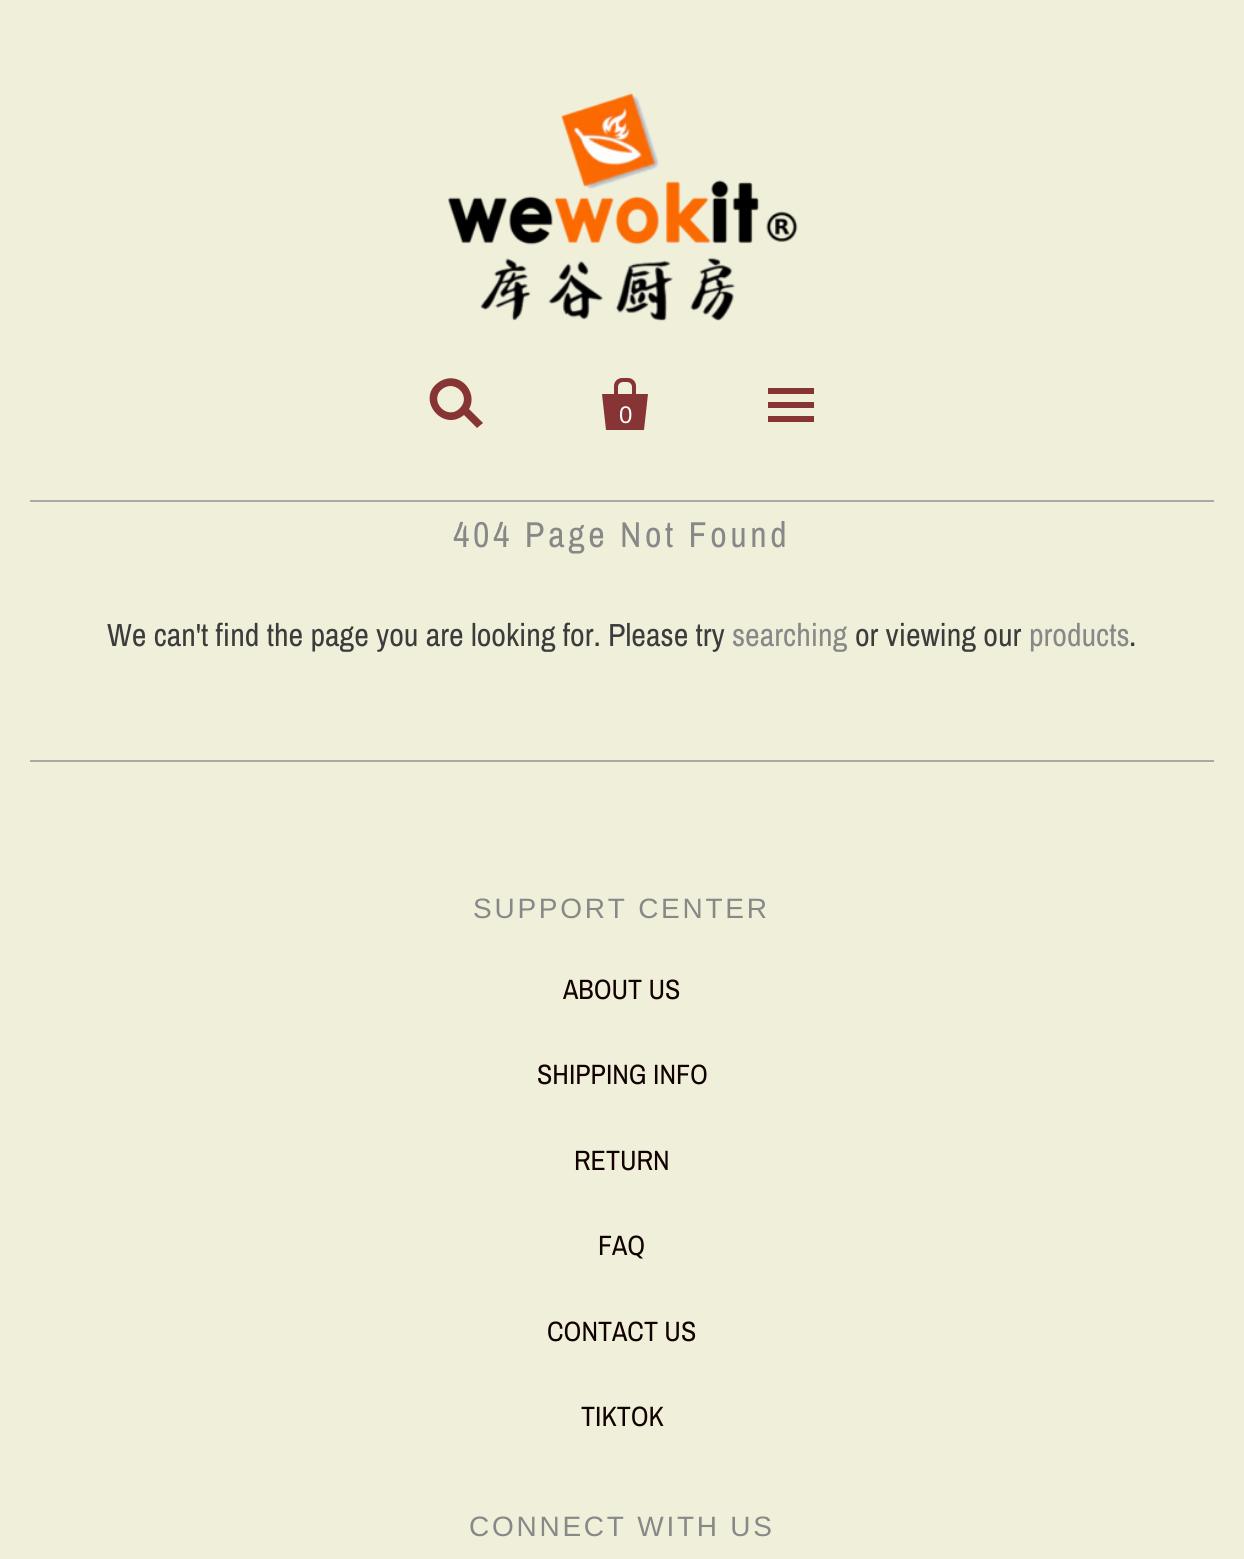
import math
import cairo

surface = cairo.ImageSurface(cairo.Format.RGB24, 1244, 1559)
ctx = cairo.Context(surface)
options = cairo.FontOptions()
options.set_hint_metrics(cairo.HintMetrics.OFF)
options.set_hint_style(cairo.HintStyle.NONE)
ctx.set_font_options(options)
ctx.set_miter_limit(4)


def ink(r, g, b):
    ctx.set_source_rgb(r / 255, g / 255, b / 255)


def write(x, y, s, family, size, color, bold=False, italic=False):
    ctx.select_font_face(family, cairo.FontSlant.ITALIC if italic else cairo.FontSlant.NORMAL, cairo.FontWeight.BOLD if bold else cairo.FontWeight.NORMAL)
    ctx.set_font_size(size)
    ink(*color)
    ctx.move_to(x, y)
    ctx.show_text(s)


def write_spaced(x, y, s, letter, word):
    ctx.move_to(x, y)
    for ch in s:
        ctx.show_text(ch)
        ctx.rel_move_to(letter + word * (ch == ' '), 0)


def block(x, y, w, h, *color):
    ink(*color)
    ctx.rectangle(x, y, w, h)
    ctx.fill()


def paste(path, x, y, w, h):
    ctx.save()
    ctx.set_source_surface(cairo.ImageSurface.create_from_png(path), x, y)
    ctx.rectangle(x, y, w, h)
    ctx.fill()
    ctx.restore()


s1 = dict(family="Liberation Sans", size=24, color=(255, 255, 255))
s2 = dict(family="Archivo Narrow", size=32, color=(60, 60, 60))
s3 = dict(family="Archivo Narrow", size=32, color=(136, 136, 136))
s4 = dict(family="Archivo Narrow", size=28, color=(18, 1, 1))

ink(240, 240, 218)
ctx.paint()
block(30, 500, 1184, 2, 171, 167, 167)
paste("pic1.png", 448, 92, 350, 229)
ink(134, 52, 52)
ctx.new_path()
ctx.move_to(469, 409)
ctx.curve_to(475, 399, 470, 385, 459, 380)
ctx.curve_to(452, 377, 445, 378, 439, 382)
ctx.curve_to(415, 398, 442, 433, 464, 415)
ctx.line_to(477, 428)
ctx.line_to(483, 423)
ctx.close_path()
ctx.move_to(460, 408)
ctx.curve_to(448, 421, 429, 402, 441, 390)
ctx.curve_to(454, 378, 472, 396, 460, 408)
ctx.close_path()
ctx.fill()
paste("pic2.png", 602, 378, 46, 52)
write(619, 423, "0", **s1)
block(768, 402, 46, 6, 134, 52, 52)
block(768, 388, 46, 6, 134, 52, 52)
block(768, 416, 46, 6, 134, 52, 52)
ctx.select_font_face("Archivo Narrow")
ctx.set_font_size(36)
ink(136, 136, 136)
write_spaced(453, 547, "404 Page Not Found", 3.6, 0)
write(107, 646, "We can't find the page you are looking for. Please try", **s2)
write(732, 646, "searching", **s3)
write(855, 646, "or viewing our", **s2)
write(1029, 646, "products", **s3)
write(1129, 646, ".", **s2)
block(30, 760, 1184, 2, 171, 167, 167)
ctx.select_font_face("Liberation Sans")
ctx.set_font_size(28)
ink(136, 136, 136)
write_spaced(473, 918, "SUPPORT CENTER", 2.75, 0)
write(563, 999, "ABOUT US", **s4)
write(537, 1084, "SHIPPING INFO", **s4)
write(574, 1170, "RETURN", **s4)
write(598, 1255, "FAQ", **s4)
write(547, 1341, "CONTACT US", **s4)
write(581, 1426, "TIKTOK", **s4)
ctx.select_font_face("Liberation Sans")
ink(136, 136, 136)
write_spaced(469, 1536, "CONNECT WITH US", 2.75, 0)
surface.write_to_png("screenshot.png")
